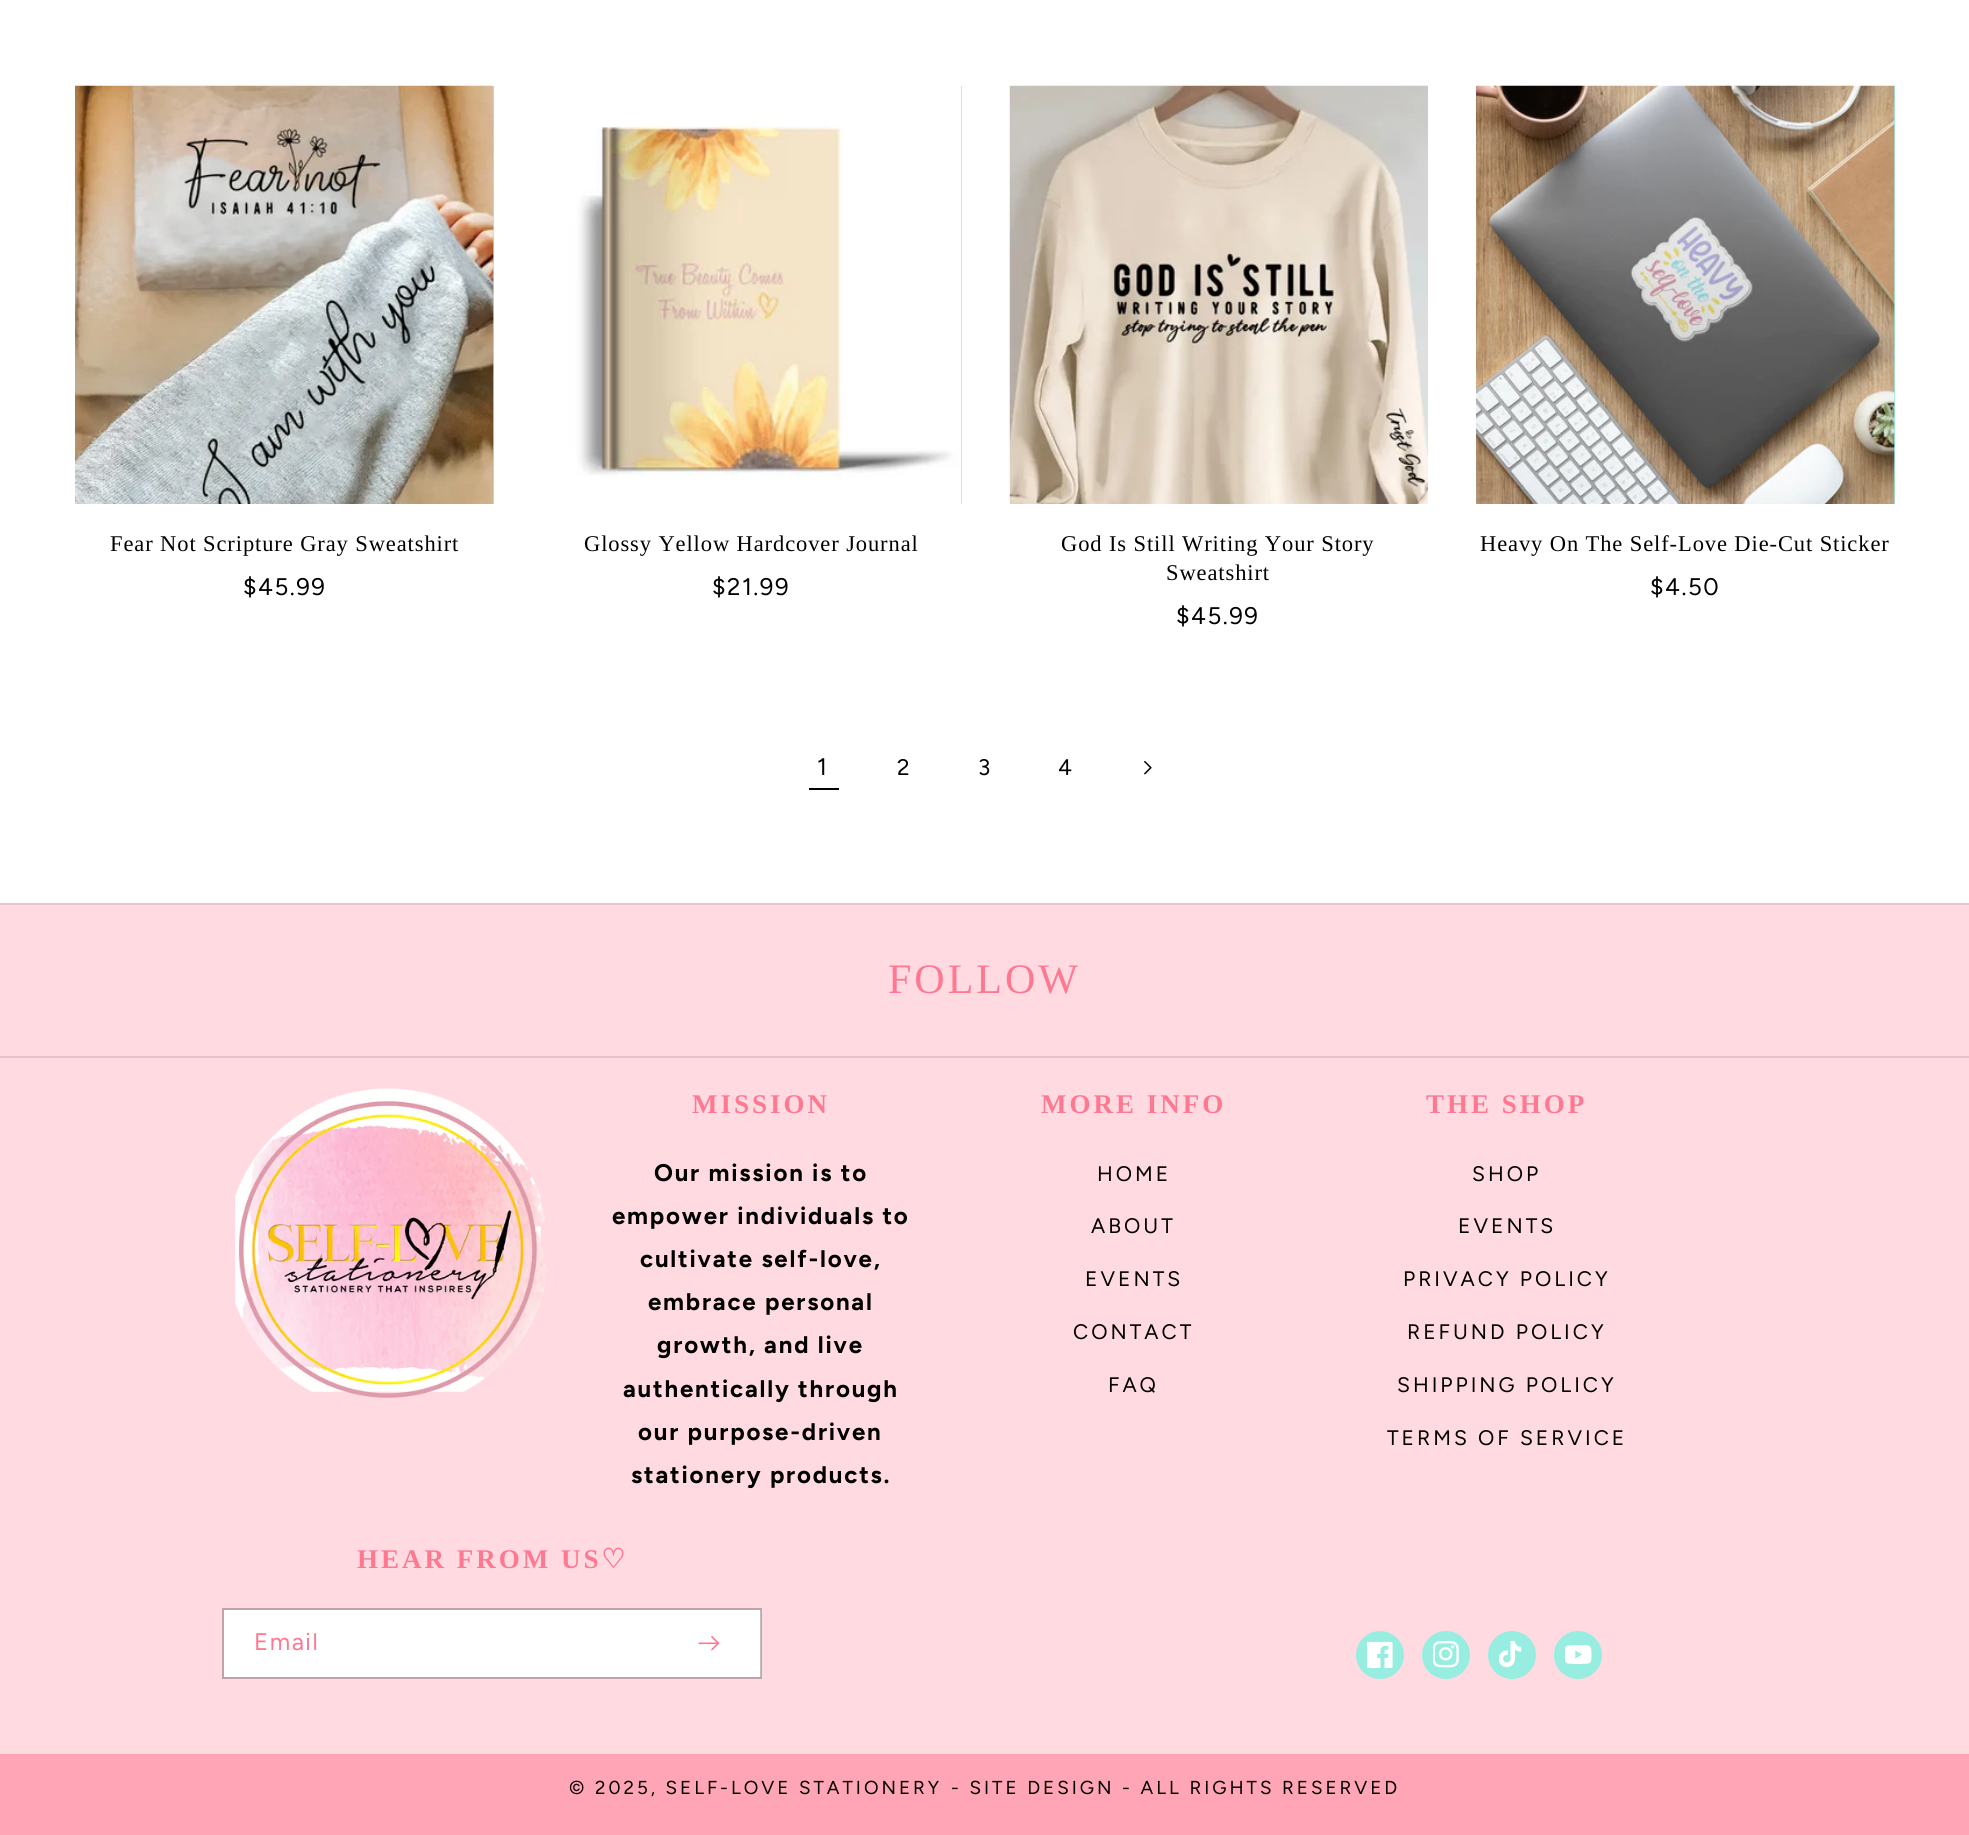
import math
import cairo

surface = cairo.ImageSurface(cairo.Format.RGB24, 1969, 1835)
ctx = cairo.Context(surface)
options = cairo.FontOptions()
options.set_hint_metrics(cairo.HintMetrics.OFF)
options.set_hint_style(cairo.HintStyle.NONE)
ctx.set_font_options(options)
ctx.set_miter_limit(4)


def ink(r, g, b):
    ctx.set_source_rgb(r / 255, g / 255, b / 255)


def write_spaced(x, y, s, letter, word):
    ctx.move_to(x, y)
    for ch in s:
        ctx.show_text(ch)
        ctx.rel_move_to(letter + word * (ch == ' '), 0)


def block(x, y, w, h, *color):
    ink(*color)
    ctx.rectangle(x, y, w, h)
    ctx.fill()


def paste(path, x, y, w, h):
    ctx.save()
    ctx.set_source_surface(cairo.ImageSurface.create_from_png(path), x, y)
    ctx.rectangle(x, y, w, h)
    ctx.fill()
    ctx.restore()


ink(255, 255, 255)
ctx.paint()
block(493, 86, 1, 418, 151, 238, 224)
paste("pic1.png", 75, 85, 419, 419)
ctx.select_font_face("Liberation Serif")
ctx.set_font_size(22.5)
ink(0, 0, 0)
write_spaced(110, 551, "Fear Not Scripture Gray Sweatshirt", 0.9, 0)
ctx.select_font_face("Figtree")
ctx.set_font_size(24)
write_spaced(243, 595, "$45.99", 1.5, 0)
block(961, 86, 1, 418, 151, 238, 224)
paste("pic2.png", 542, 86, 420, 418)
ctx.select_font_face("Liberation Serif")
ctx.set_font_size(22.5)
ink(0, 0, 0)
write_spaced(584, 551, "Glossy Yellow Hardcover Journal", 0.9, 0)
ctx.select_font_face("Figtree")
ctx.set_font_size(24)
write_spaced(712, 595, "$21.99", 1.5, 0)
paste("pic3.png", 1009, 85, 419, 419)
ctx.select_font_face("Liberation Serif")
ctx.set_font_size(22.5)
write_spaced(1061, 551, "God Is Still Writing Your Story", 0.9, 0)
write_spaced(1166, 580, "Sweatshirt", 0.9, 0)
ctx.select_font_face("Figtree")
ctx.set_font_size(24)
write_spaced(1176, 624, "$45.99", 1.5, 0)
block(1894, 86, 1, 418, 151, 238, 224)
paste("pic4.png", 1476, 85, 419, 419)
ctx.select_font_face("Liberation Serif")
ctx.set_font_size(22.5)
ink(0, 0, 0)
write_spaced(1480, 551, "Heavy On The Self-Love Die-Cut Sticker", 0.9, 0)
ctx.select_font_face("Figtree")
ctx.set_font_size(24)
write_spaced(1650, 595, "$4.50", 1.5, 0)
write_spaced(817, 775, "1", 0.9, 0)
block(809, 788, 30, 2, 0, 0, 0)
ctx.set_font_size(22.5)
write_spaced(897, 775, "2", 0.9, 0)
write_spaced(978, 775, "3", 0.9, 0)
write_spaced(1058, 775, "4", 0.9, 0)
paste("pic5.png", 1144, 761, 8, 14)
block(0, 905, 1969, 151, 255, 218, 225)
block(0, 903, 1969, 2, 230, 196, 203)
block(0, 1056, 1969, 2, 230, 196, 203)
ctx.select_font_face("Liberation Serif")
ctx.set_font_size(42)
ink(255, 120, 146)
write_spaced(888, 993, "FOLLOW", 3, 0)
block(0, 1058, 1969, 696, 255, 218, 225)
paste("pic6.png", 235, 1088, 313, 310)
ctx.select_font_face("Liberation Serif", cairo.FontSlant.NORMAL, cairo.FontWeight.BOLD)
ctx.set_font_size(27)
ink(255, 120, 146)
write_spaced(692, 1113, "MISSION", 3, 0)
ctx.select_font_face("Figtree", cairo.FontSlant.NORMAL, cairo.FontWeight.BOLD)
ctx.set_font_size(24)
ink(0, 0, 0)
write_spaced(654, 1181, "Our mission is to", 1.8, 0)
write_spaced(612, 1224, "empower individuals to", 1.8, 0)
write_spaced(640, 1267, "cultivate self-love,", 1.8, 0)
write_spaced(648, 1310, "embrace personal", 1.8, 0)
write_spaced(657, 1353, "growth, and live", 1.8, 0)
write_spaced(623, 1397, "authentically through", 1.8, 0)
write_spaced(638, 1440, "our purpose-driven", 1.8, 0)
write_spaced(631, 1483, "stationery products.", 1.8, 0)
ctx.select_font_face("Liberation Serif", cairo.FontSlant.NORMAL, cairo.FontWeight.BOLD)
ctx.set_font_size(27)
ink(255, 120, 146)
write_spaced(1041, 1113, "MORE INFO", 3, 0)
ctx.select_font_face("Figtree")
ctx.set_font_size(21)
ink(0, 0, 0)
write_spaced(1097, 1181, "HOME", 3, 0)
write_spaced(1091, 1233, "ABOUT", 3, 0)
write_spaced(1085, 1286, "EVENTS", 3, 0)
write_spaced(1073, 1339, "CONTACT", 3, 0)
write_spaced(1108, 1392, "FAQ", 3, 0)
ctx.select_font_face("Liberation Serif", cairo.FontSlant.NORMAL, cairo.FontWeight.BOLD)
ctx.set_font_size(27)
ink(255, 120, 146)
write_spaced(1426, 1113, "THE SHOP", 3, 0)
ctx.select_font_face("Figtree")
ctx.set_font_size(21)
ink(0, 0, 0)
write_spaced(1472, 1181, "SHOP", 3, 0)
write_spaced(1458, 1233, "EVENTS", 3, 0)
write_spaced(1403, 1286, "PRIVACY POLICY", 3, 0)
write_spaced(1407, 1339, "REFUND POLICY", 3, 0)
write_spaced(1397, 1392, "SHIPPING POLICY", 3, 0)
write_spaced(1387, 1445, "TERMS OF SERVICE", 3, 0)
ctx.select_font_face("Liberation Serif", cairo.FontSlant.NORMAL, cairo.FontWeight.BOLD)
ctx.set_font_size(27)
ink(255, 120, 146)
write_spaced(357, 1568, "HEAR FROM US", 3, 0)
ctx.select_font_face("DejaVu Sans", cairo.FontSlant.NORMAL, cairo.FontWeight.BOLD)
write_spaced(601, 1568, "♡", 3, 0)
block(224, 1610, 537, 67, 255, 255, 255)
ctx.rectangle(223, 1609, 538, 69)
ctx.set_source_rgba(0, 0, 0, 0.25)
ctx.stroke()
ctx.select_font_face("Figtree")
ctx.set_font_size(24)
ink(255, 120, 146)
write_spaced(254, 1650, "Email", 1.5, 0)
paste("pic7.png", 698, 1636, 22, 15)
ink(151, 238, 224)
ctx.arc(1380, 1655, 24, 0, 2 * math.pi)
ctx.fill()
paste("pic8.png", 1367, 1641, 26, 27)
ctx.arc(1446, 1655, 24, 0, 2 * math.pi)
ctx.fill()
paste("pic9.png", 1433, 1641, 26, 27)
ctx.arc(1512, 1655, 24, 0, 2 * math.pi)
ctx.fill()
paste("pic10.png", 1499, 1641, 23, 27)
ctx.arc(1578, 1655, 24, 0, 2 * math.pi)
ctx.fill()
paste("pic11.png", 1565, 1645, 27, 19)
block(0, 1754, 1969, 81, 255, 165, 182)
ctx.set_font_size(18.75)
ink(0, 0, 0)
write_spaced(569, 1794, "© 2025, SELF-LOVE STATIONERY", 3, 0)
write_spaced(951, 1794, "- SITE DESIGN - ALL RIGHTS RESERVED", 3, 0)
surface.write_to_png("screenshot.png")
